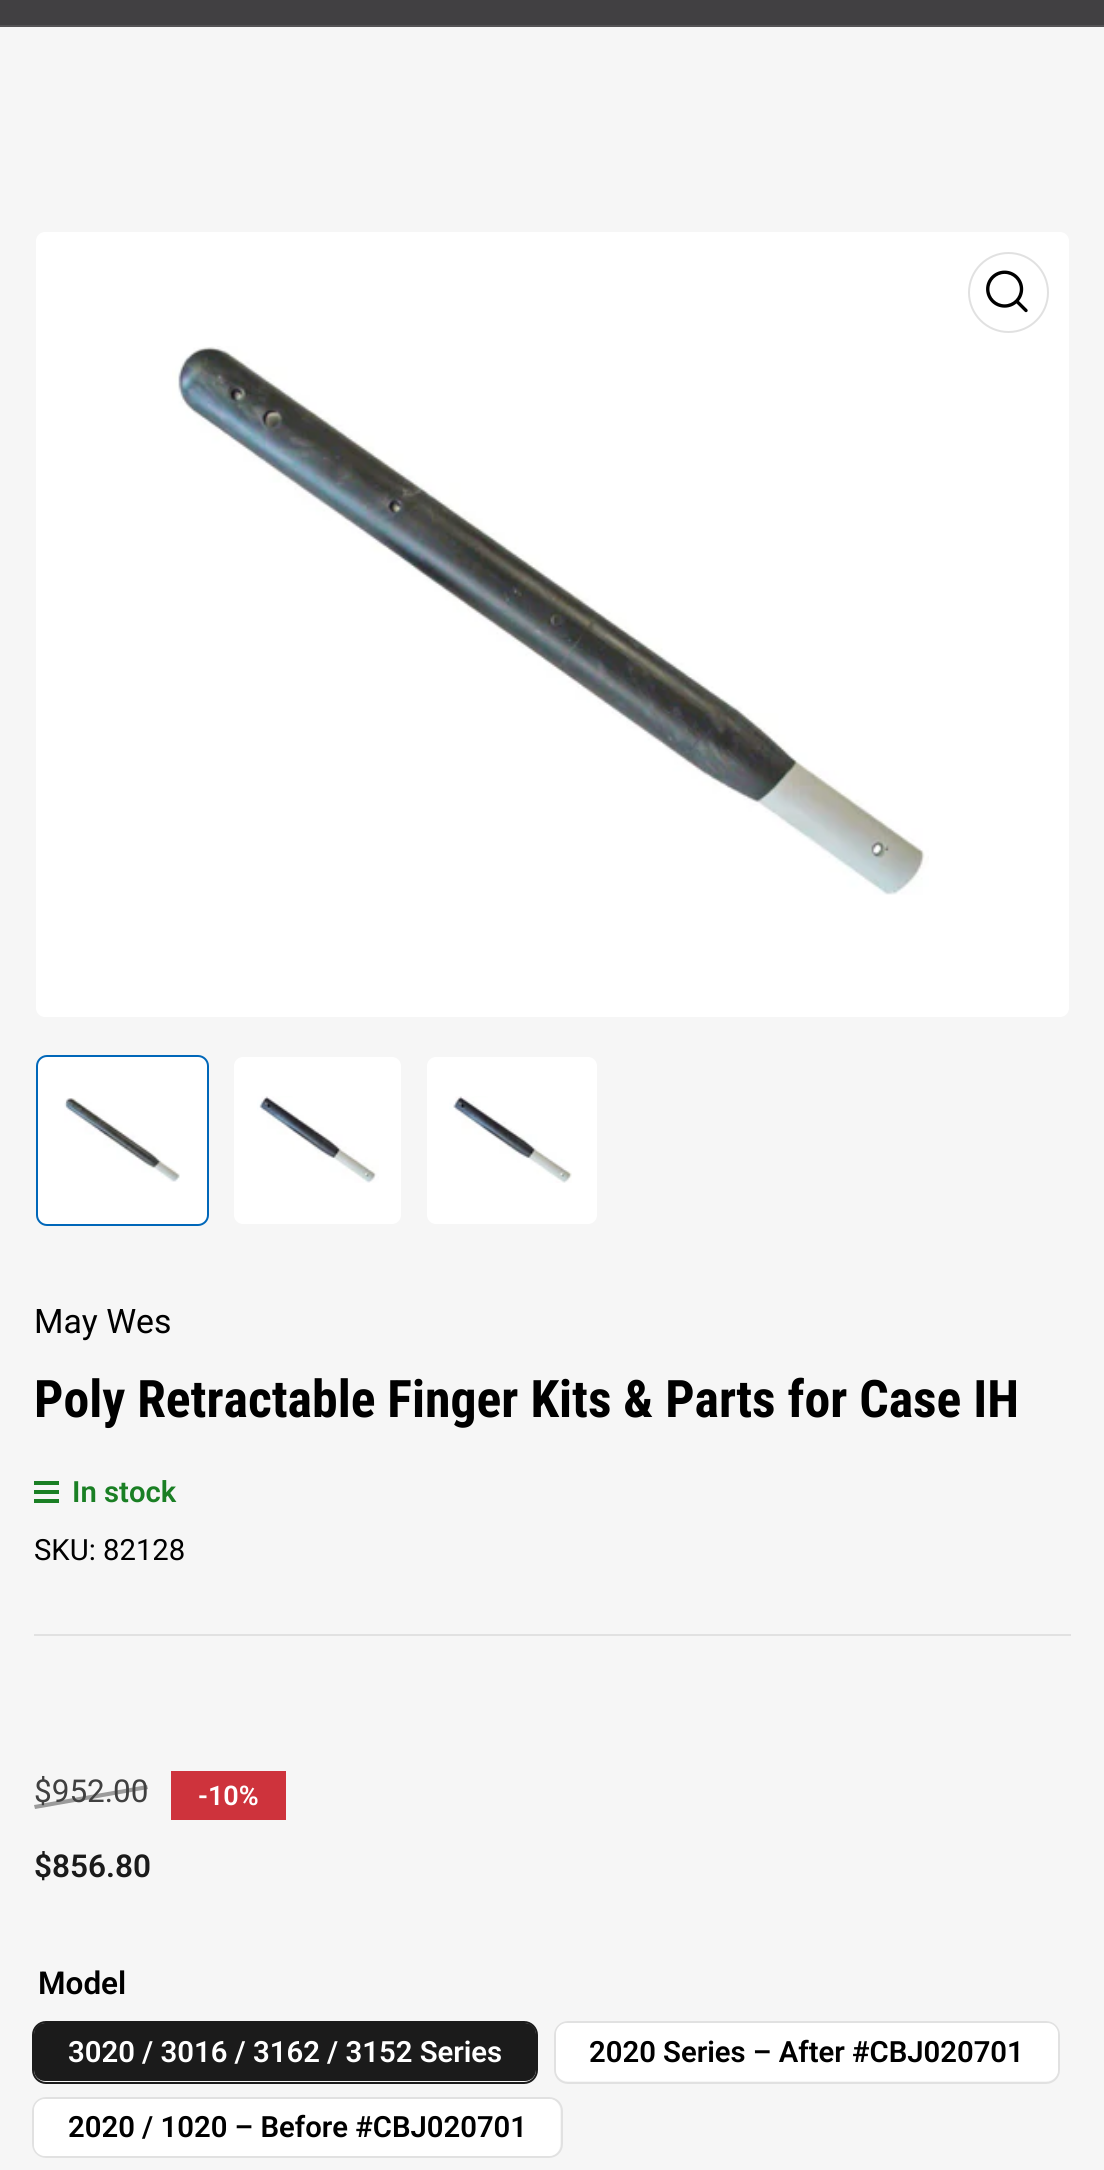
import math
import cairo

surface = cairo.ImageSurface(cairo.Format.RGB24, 1104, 2170)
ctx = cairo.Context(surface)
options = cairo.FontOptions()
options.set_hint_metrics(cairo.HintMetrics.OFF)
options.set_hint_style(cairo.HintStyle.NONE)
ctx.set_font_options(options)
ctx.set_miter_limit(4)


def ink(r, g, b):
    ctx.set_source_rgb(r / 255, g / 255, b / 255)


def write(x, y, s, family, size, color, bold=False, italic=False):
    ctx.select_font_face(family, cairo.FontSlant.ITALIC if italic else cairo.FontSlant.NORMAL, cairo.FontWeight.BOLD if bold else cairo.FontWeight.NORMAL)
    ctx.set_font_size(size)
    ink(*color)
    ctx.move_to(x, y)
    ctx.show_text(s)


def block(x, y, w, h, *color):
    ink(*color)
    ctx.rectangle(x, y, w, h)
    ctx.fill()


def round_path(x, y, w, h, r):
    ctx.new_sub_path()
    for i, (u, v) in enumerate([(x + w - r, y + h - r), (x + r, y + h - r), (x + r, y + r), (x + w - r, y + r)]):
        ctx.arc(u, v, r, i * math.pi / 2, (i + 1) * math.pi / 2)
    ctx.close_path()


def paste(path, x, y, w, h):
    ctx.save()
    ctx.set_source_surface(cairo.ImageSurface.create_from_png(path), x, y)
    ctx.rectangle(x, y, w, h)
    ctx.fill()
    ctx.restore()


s1 = dict(family="Roboto", size=33.75, color=(0, 0, 0))
s2 = dict(family="Roboto Condensed", size=51.75, color=(0, 0, 0), bold=True)
s3 = dict(family="Roboto SemiBold", size=29.25, color=(26, 127, 36))
s4 = dict(family="Roboto", size=29.25, color=(0, 0, 0))
s5 = dict(family="Roboto", size=31.5, color=(64, 64, 64))
s6 = dict(family="Roboto SemiBold", size=27, color=(255, 255, 255))
s7 = dict(family="Roboto SemiBold", size=31.5, color=(27, 27, 27))
s8 = dict(family="Roboto SemiBold", size=31.5, color=(0, 0, 0))
s9 = dict(family="Roboto SemiBold", size=29.25, color=(255, 255, 255))
s10 = dict(family="Roboto SemiBold", size=29.25, color=(0, 0, 0))

ink(246, 246, 246)
ctx.paint()
block(0, 0, 1104, 25, 65, 64, 66)
block(0, 25, 1104, 2, 84, 83, 85)
ink(255, 255, 255)
round_path(35, 231, 1035, 787, 10)
ctx.fill_preserve()
ink(246, 246, 246)
ctx.stroke()
ctx.arc(1008.5, 292.5, 39.5, 0, 2 * math.pi)
ink(225, 225, 225)
ctx.stroke()
paste("pic1.png", 986, 270, 42, 43)
paste("pic2.png", 172, 346, 757, 549)
ink(255, 255, 255)
round_path(37, 1056, 171, 169, 10)
ctx.fill_preserve()
ink(0, 103, 185)
ctx.stroke()
paste("pic3.png", 64, 1098, 116, 84)
ink(255, 255, 255)
round_path(233, 1056, 169, 169, 10)
ctx.fill_preserve()
ink(246, 246, 246)
ctx.stroke()
paste("pic4.png", 257, 1096, 122, 87)
ink(255, 255, 255)
round_path(426, 1056, 172, 169, 10)
ctx.fill_preserve()
ink(246, 246, 246)
ctx.stroke()
paste("pic5.png", 449, 1096, 123, 87)
block(34, 1634, 1037, 2, 225, 225, 225)
write(34, 1333, "May Wes", **s1)
write(34, 1417, "Poly Retractable Finger Kits & Parts for Case IH", **s2)
block(34, 1481, 25, 4, 26, 127, 36)
block(34, 1490, 25, 4, 26, 127, 36)
block(34, 1499, 25, 4, 26, 127, 36)
write(72, 1502, "In stock", **s3)
write(34, 1560, "SKU: 82128", **s4)
write(34, 1802, "$952.00", **s5)
ctx.set_source_rgba(0.251, 0.251, 0.251, 0.5)
ctx.new_path()
ctx.move_to(34, 1805)
ctx.line_to(147, 1785)
ctx.line_to(148, 1789)
ctx.line_to(35, 1809)
ctx.close_path()
ctx.fill()
block(171, 1771, 115, 49, 206, 51, 60)
write(198, 1805, "-10%", **s6)
write(34, 1877, "$856.80", **s7)
write(38, 1994, "Model", **s8)
round_path(33, 2022, 504, 61, 13)
ink(27, 27, 27)
ctx.stroke()
round_path(34, 2023, 502, 58, 11)
ctx.fill()
write(68, 2062, "3020 / 3016 / 3162 / 3152 Series", **s9)
round_path(555, 2022, 504, 61, 13)
ink(225, 225, 225)
ctx.stroke()
ink(255, 255, 255)
round_path(556, 2023, 502, 58, 11)
ctx.fill()
write(589, 2062, "2020 Series – After #CBJ020701", **s10)
round_path(33, 2098, 529, 59, 13)
ink(225, 225, 225)
ctx.stroke()
ink(255, 255, 255)
round_path(34, 2099, 526, 57, 11)
ctx.fill()
write(68, 2137, "2020 / 1020 – Before #CBJ020701", **s10)
surface.write_to_png("screenshot.png")
